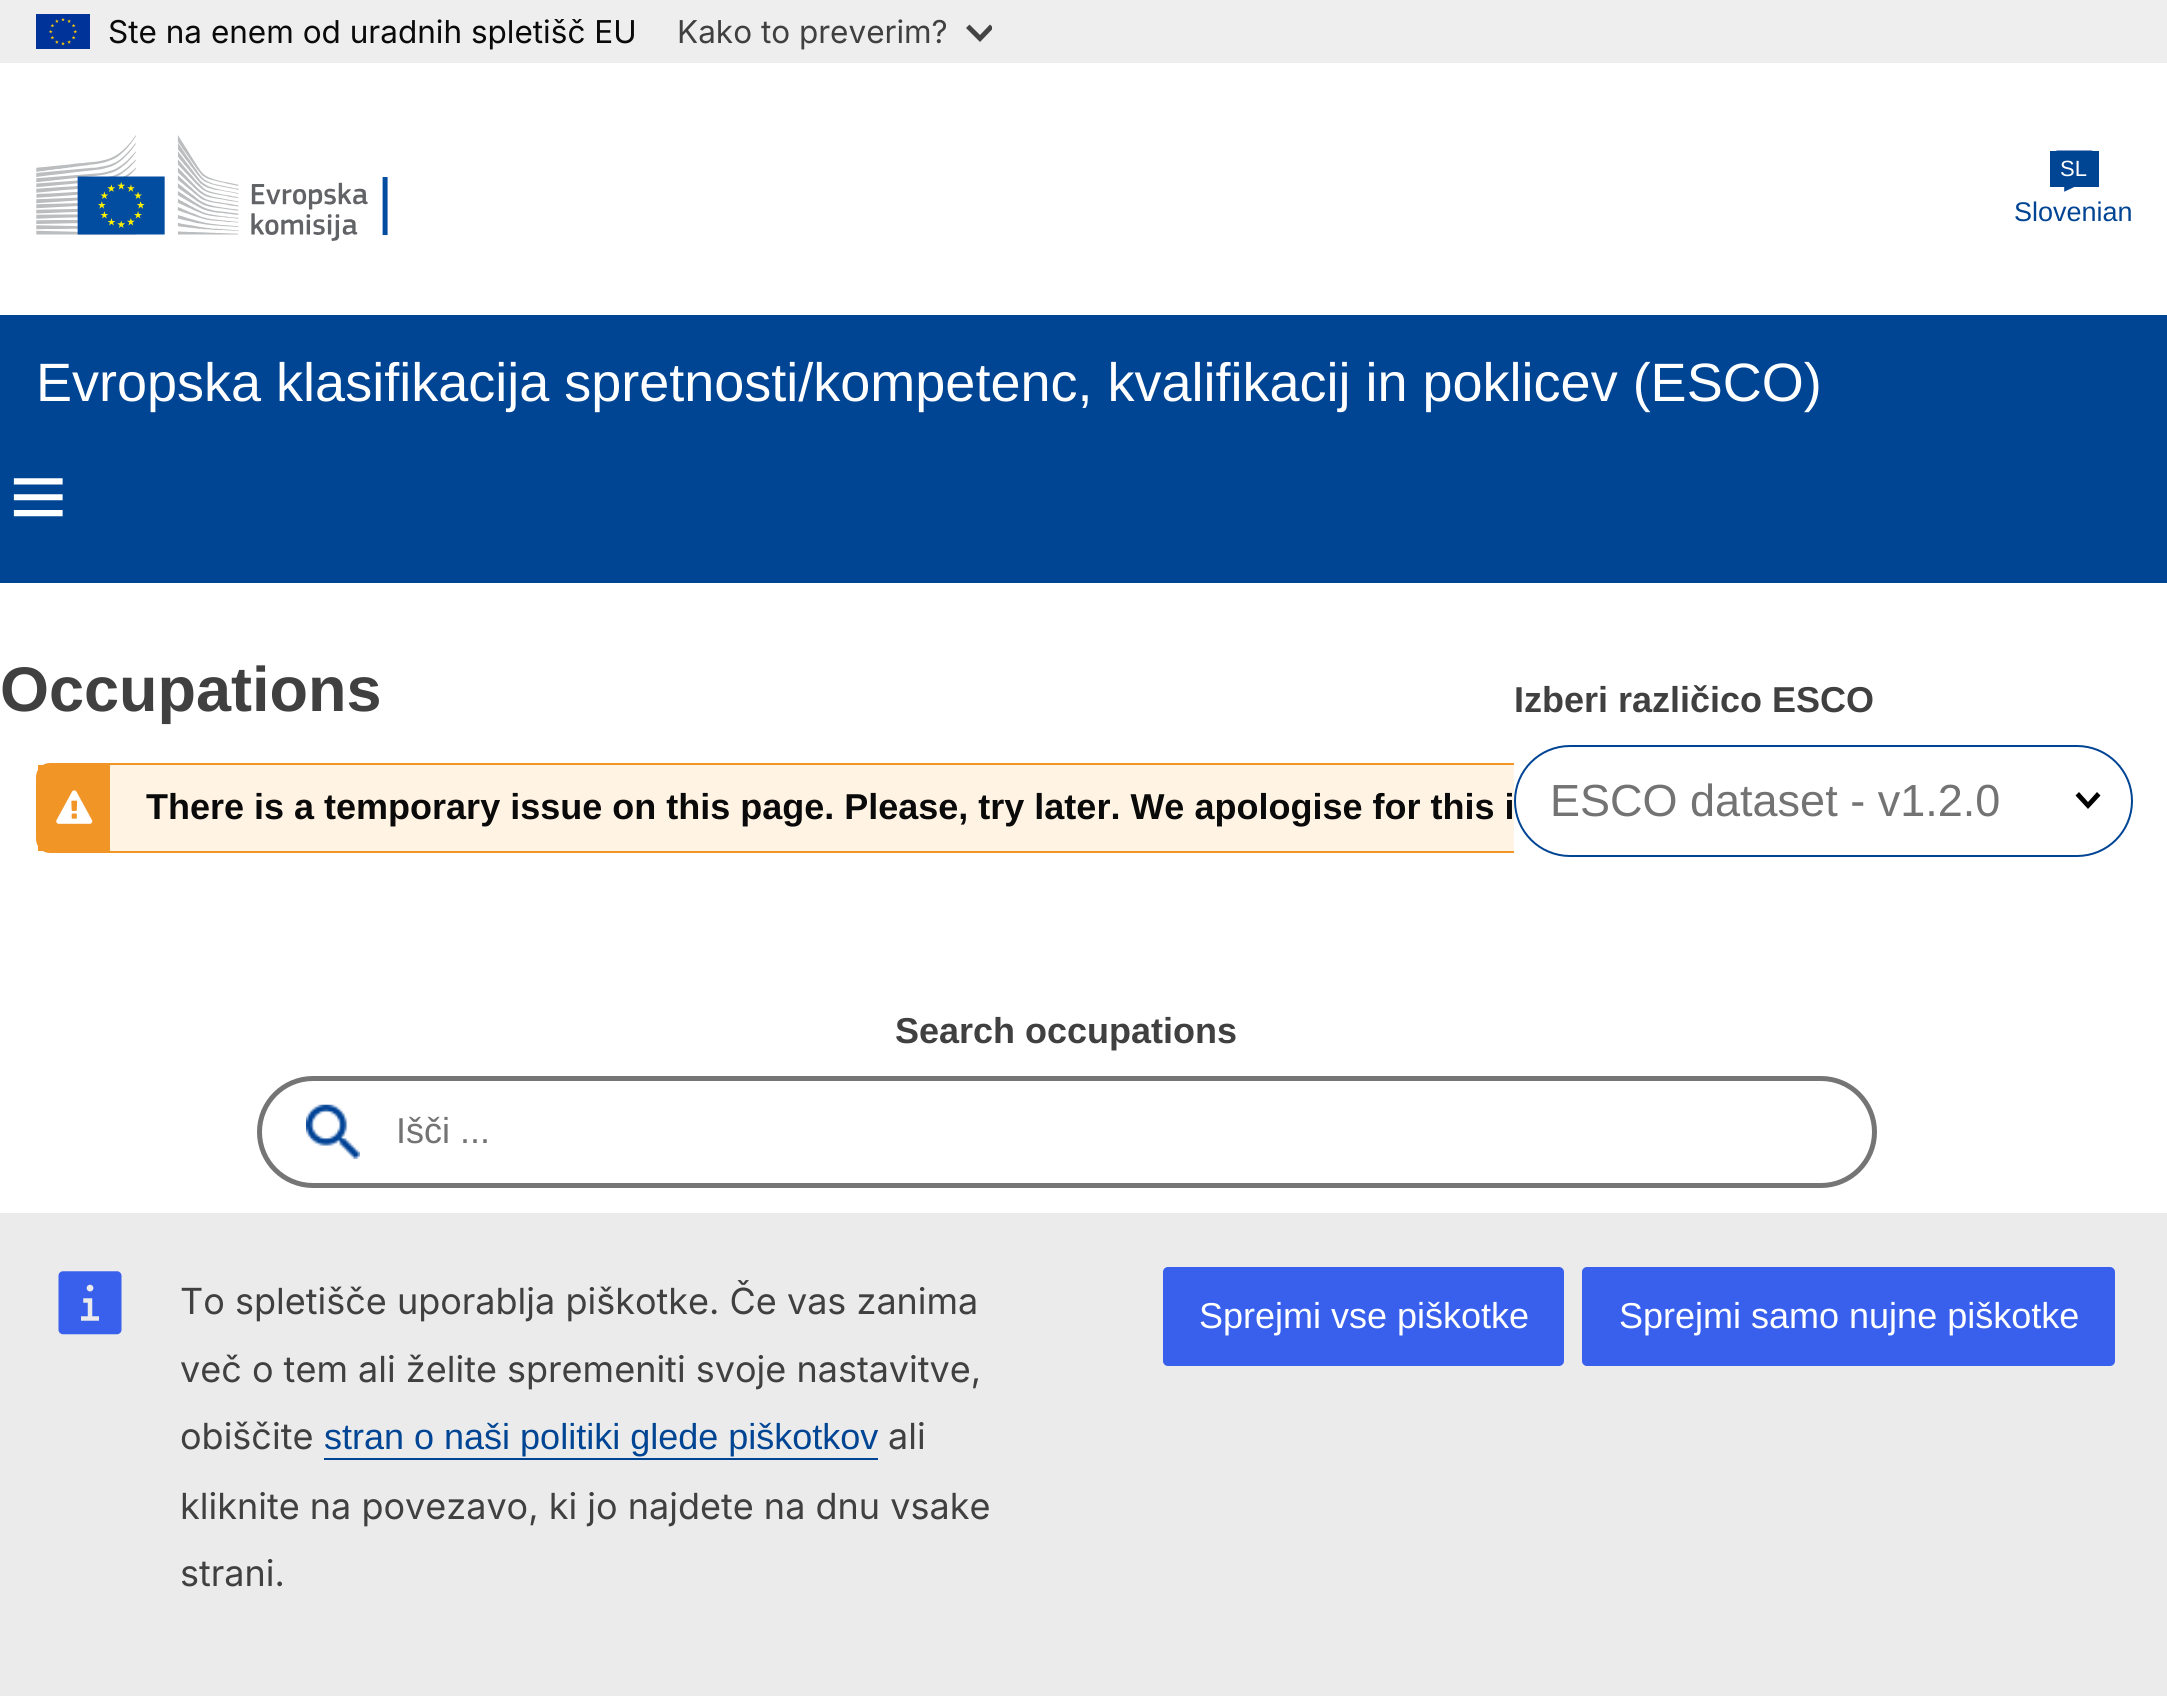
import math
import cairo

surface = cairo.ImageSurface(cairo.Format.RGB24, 2167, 1696)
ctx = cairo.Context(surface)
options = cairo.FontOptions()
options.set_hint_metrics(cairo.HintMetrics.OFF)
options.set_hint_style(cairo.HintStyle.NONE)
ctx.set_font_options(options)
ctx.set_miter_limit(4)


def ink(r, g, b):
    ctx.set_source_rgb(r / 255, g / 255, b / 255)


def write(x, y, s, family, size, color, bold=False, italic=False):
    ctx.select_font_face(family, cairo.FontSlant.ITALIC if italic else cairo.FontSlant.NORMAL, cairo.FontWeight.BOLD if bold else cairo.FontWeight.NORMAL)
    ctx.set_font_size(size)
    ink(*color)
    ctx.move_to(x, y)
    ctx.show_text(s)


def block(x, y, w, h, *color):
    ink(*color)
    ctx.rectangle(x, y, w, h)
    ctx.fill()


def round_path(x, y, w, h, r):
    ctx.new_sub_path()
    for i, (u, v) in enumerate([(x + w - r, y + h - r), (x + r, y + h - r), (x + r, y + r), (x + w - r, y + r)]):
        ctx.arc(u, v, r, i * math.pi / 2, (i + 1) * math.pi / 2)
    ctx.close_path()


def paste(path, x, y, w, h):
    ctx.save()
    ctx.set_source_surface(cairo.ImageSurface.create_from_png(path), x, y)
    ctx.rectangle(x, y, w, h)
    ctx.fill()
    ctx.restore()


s1 = dict(family="Inter", size=31.5, color=(10, 10, 10))
s2 = dict(family="Inter", size=31.5, color=(64, 64, 64))
s3 = dict(family="Liberation Sans", size=22, color=(255, 255, 255))
s4 = dict(family="Liberation Sans", size=27, color=(0, 68, 148))
s5 = dict(family="Liberation Sans", size=54, color=(255, 255, 255))
s6 = dict(family="Liberation Sans", size=63, color=(64, 64, 64), bold=True)
s7 = dict(family="Liberation Sans", size=36, color=(64, 64, 64), bold=True)
s8 = dict(family="Liberation Sans", size=45, color=(115, 115, 115))
s9 = dict(family="Liberation Sans", size=36, color=(115, 115, 115))
s10 = dict(family="Liberation Sans", size=36, color=(10, 10, 10), bold=True)
s11 = dict(family="Inter", size=36, color=(64, 64, 64))
s12 = dict(family="Liberation Sans", size=36, color=(0, 68, 148))
s13 = dict(family="Liberation Sans", size=36, color=(255, 255, 255))

ink(255, 255, 255)
ctx.paint()
block(0, 0, 2167, 63, 238, 238, 238)
paste("pic1.png", 36, 14, 54, 35)
write(108, 43, "Ste na enem od uradnih spletišč EU", **s1)
write(677, 43, "Kako to preverim?", **s2)
ctx.save()
ctx.rectangle(965, 18, 27, 27)
ctx.clip()
ctx.new_path()
ctx.move_to(968, 28)
ctx.line_to(969.5, 26.5)
ctx.line_to(980, 37)
ctx.line_to(990, 26.5)
ctx.line_to(991.5, 28)
ctx.line_to(980, 40)
ctx.close_path()
ink(68, 68, 68)
ctx.set_line_width(2.8)
ctx.stroke()
ctx.restore()
paste("pic2.png", 36, 135, 352, 106)
paste("pic3.png", 2055, 150, 38, 42)
block(2050, 151, 49, 36, 0, 68, 148)
write(2060, 176, "SL", **s3)
write(2014, 221, "Slovenian", **s4)
block(0, 315, 2167, 268, 0, 68, 148)
write(36, 401, "Evropska klasifikacija spretnosti/kompetenc, kvalifikacij in poklicev (ESCO)", **s5)
paste("pic4.png", 13, 478, 50, 39)
write(0, 711, "Occupations", **s6)
write(1514, 712, "Izberi različico ESCO", **s7)
ink(255, 243, 228)
round_path(37, 764, 1785, 88, 13)
ctx.fill_preserve()
ink(242, 149, 39)
ctx.stroke()
block(1514, 763, 309, 90, 255, 255, 255)
ink(0, 0, 0)
ctx.new_path()
ctx.move_to(2100.5, 795.5)
ctx.line_to(2088, 809)
ctx.line_to(2075.5, 795.5)
ctx.line_to(2079, 792)
ctx.line_to(2088, 802)
ctx.line_to(2097, 792)
ctx.close_path()
ctx.fill()
round_path(1515, 746, 617, 110, 55)
ink(0, 68, 148)
ctx.stroke()
write(1550, 816, "ESCO dataset - v1.2.0", **s8)
write(895, 1043, "Search occupations", **s7)
paste("pic5.png", 306, 1104, 54, 55)
round_path(259.5, 1078.5, 1615, 107, 53.5)
ink(117, 117, 117)
ctx.set_line_width(5)
ctx.stroke()
write(396, 1143, "Išči ...", **s9)
block(38, 765, 72, 86, 242, 149, 39)
paste("pic6.png", 56, 790, 37, 34)
write(146, 819, "There is a temporary issue on this page. Please, try later. We apologise for this i", **s10)
block(0, 1213, 2167, 483, 235, 235, 235)
paste("pic7.png", 58, 1271, 64, 64)
write(180, 1314, "To spletišče uporablja piškotke. Če vas zanima", **s11)
write(180, 1382, "več o tem ali želite spremeniti svoje nastavitve,", **s11)
write(180, 1449, "obiščite", **s11)
write(324, 1449, "stran o naši politiki glede piškotkov", **s12)
block(324, 1458, 554, 2, 0, 68, 148)
write(888, 1449, "ali", **s11)
write(180, 1519, "kliknite na povezavo, ki jo najdete na dnu vsake", **s11)
write(180, 1586, "strani.", **s11)
ink(56, 96, 237)
round_path(1163, 1267, 401, 99, 5)
ctx.fill()
write(1199, 1328, "Sprejmi vse piškotke", **s13)
ink(56, 96, 237)
round_path(1582, 1267, 533, 99, 5)
ctx.fill()
write(1619, 1328, "Sprejmi samo nujne piškotke", **s13)
surface.write_to_png("screenshot.png")
